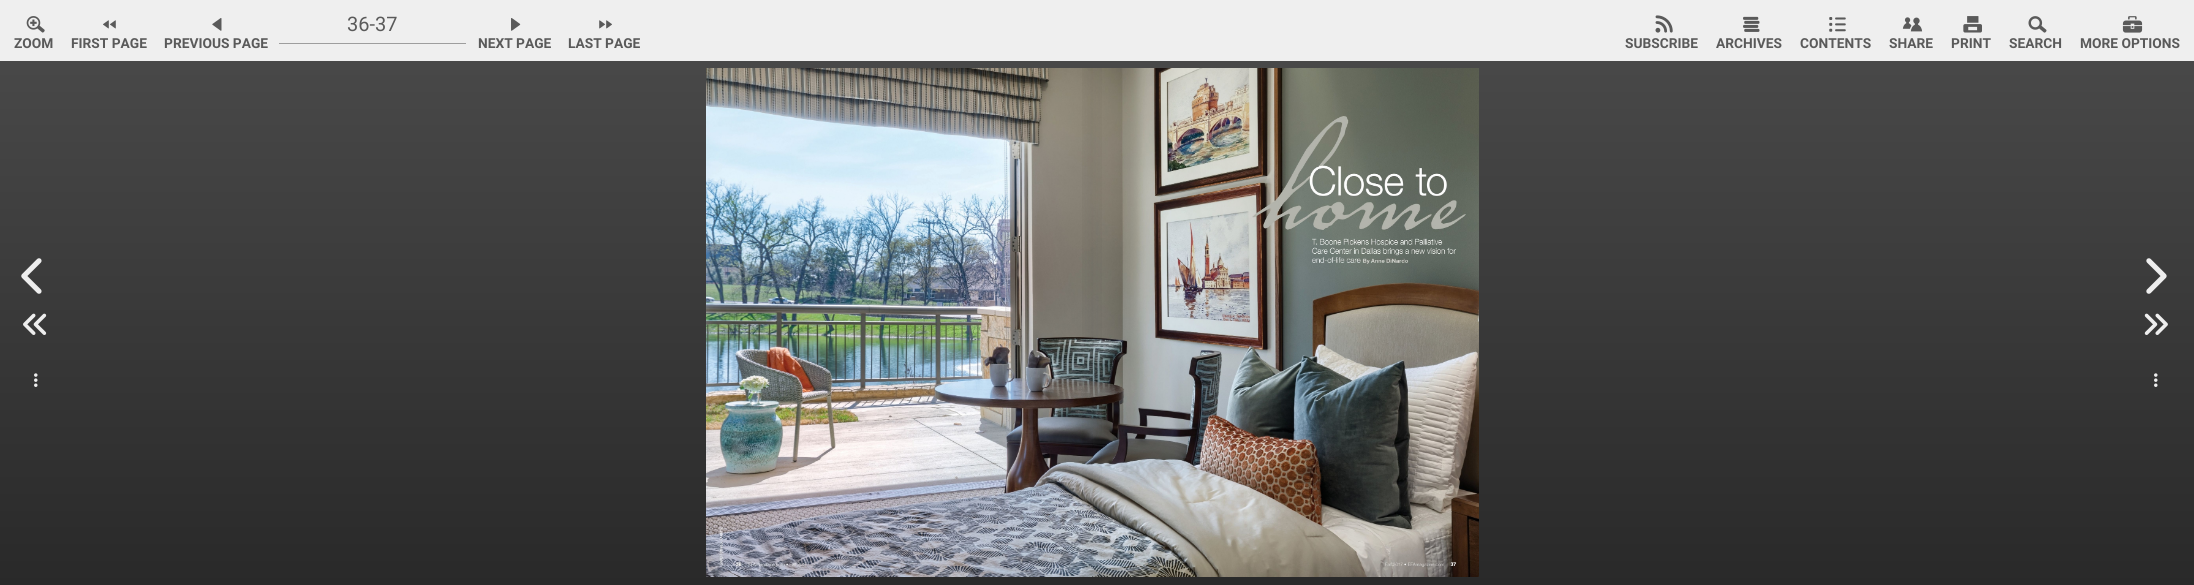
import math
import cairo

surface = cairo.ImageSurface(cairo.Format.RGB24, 2194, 585)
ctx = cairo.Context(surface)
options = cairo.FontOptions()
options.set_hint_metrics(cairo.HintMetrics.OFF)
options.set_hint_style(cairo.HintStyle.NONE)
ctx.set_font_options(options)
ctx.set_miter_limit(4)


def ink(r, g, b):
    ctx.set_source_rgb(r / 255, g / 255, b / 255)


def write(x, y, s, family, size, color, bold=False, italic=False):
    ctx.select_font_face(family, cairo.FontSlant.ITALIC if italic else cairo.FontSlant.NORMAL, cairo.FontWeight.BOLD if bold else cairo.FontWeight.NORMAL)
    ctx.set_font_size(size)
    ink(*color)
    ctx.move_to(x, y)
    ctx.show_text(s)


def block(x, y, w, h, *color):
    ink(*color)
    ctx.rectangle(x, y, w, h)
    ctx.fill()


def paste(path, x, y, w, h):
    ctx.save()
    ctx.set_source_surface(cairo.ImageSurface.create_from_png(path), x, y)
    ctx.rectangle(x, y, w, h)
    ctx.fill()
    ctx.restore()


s1 = dict(family="Roboto", size=20, color=(90, 90, 90))
s2 = dict(family="Roboto", size=13.75, color=(90, 90, 90), bold=True)

ink(255, 255, 255)
ctx.paint()
gradient = cairo.LinearGradient(1098, 0, 1098, 585)
gradient.add_color_stop_rgba(0, 0.298, 0.298, 0.298, 1)
gradient.add_color_stop_rgba(1, 0.161, 0.161, 0.161, 1)
ctx.set_source(gradient)
ctx.rectangle(0, 61, 2194, 524)
ctx.fill()
block(0, 0, 2194, 61, 239, 239, 239)
block(279, 43, 187, 1, 158, 158, 158)
write(347, 31, "36-37", **s1)
paste("pic1.png", 26, 16, 19, 17)
write(14, 48, "ZOOM", **s2)
paste("pic2.png", 103, 20, 13, 9)
write(71, 48, "FIRST PAGE", **s2)
paste("pic3.png", 212, 18, 10, 13)
write(164, 48, "PREVIOUS PAGE", **s2)
paste("pic4.png", 511, 18, 10, 13)
write(478, 48, "NEXT PAGE", **s2)
paste("pic5.png", 599, 20, 13, 9)
write(568, 48, "LAST PAGE", **s2)
paste("pic6.png", 1655, 15, 18, 18)
write(1625, 48, "SUBSCRIBE", **s2)
paste("pic7.png", 1743, 16, 17, 16)
write(1716, 48, "ARCHIVES", **s2)
paste("pic8.png", 1829, 17, 17, 15)
write(1800, 48, "CONTENTS", **s2)
paste("pic9.png", 1902, 17, 21, 15)
write(1889, 48, "SHARE", **s2)
paste("pic10.png", 1963, 16, 19, 17)
write(1951, 48, "PRINT", **s2)
paste("pic11.png", 2028, 16, 19, 17)
write(2009, 48, "SEARCH", **s2)
paste("pic12.png", 2122, 16, 21, 17)
write(2080, 48, "MORE OPTIONS", **s2)
paste("pic13.png", 21, 258, 21, 36)
paste("pic14.png", 23, 313, 24, 22)
paste("pic15.png", 34, 373, 4, 14)
paste("pic17.png", 1092, 68, 1, 508)
paste("pic16.png", 706, 68, 387, 509)
gradient = cairo.LinearGradient(706, 323, 1093, 323)
gradient.add_color_stop_rgba(0.95, 0, 0, 0, 0)
gradient.add_color_stop_rgba(1, 0, 0, 0, 0.05)
ctx.set_source(gradient)
ctx.rectangle(1082, 68, 11, 508)
ctx.fill()
paste("pic19.png", 1478, 68, 1, 508)
paste("pic18.png", 1093, 68, 386, 509)
gradient = cairo.LinearGradient(1479, 323, 1093, 323)
gradient.add_color_stop_rgba(0.95, 0, 0, 0, 0)
gradient.add_color_stop_rgba(1, 0, 0, 0, 0.04)
ctx.set_source(gradient)
ctx.rectangle(1093, 68, 9, 508)
ctx.fill()
paste("pic20.png", 2146, 258, 21, 36)
paste("pic21.png", 2144, 313, 24, 22)
paste("pic15.png", 2154, 373, 4, 14)
surface.write_to_png("screenshot.png")
